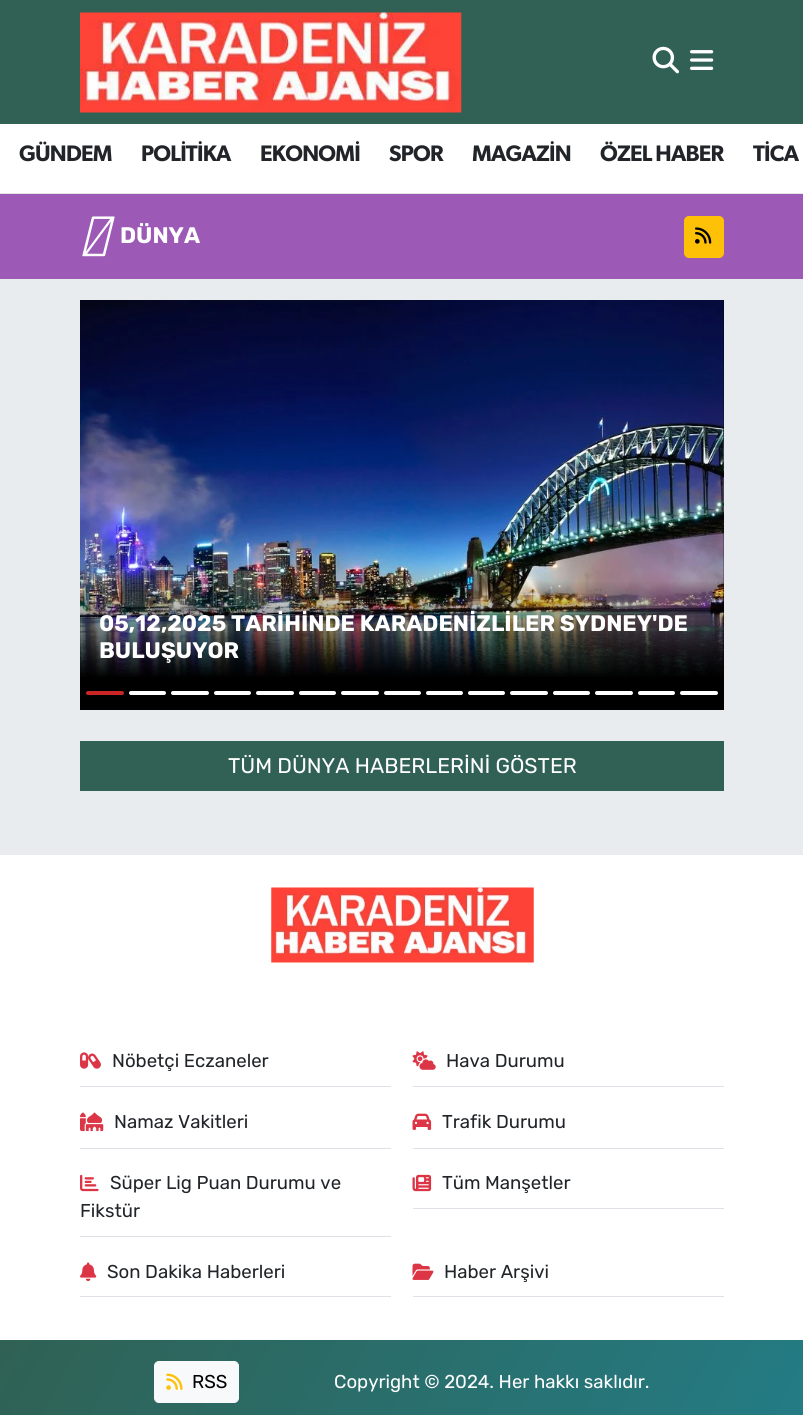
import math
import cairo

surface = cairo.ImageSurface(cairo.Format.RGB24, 803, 1415)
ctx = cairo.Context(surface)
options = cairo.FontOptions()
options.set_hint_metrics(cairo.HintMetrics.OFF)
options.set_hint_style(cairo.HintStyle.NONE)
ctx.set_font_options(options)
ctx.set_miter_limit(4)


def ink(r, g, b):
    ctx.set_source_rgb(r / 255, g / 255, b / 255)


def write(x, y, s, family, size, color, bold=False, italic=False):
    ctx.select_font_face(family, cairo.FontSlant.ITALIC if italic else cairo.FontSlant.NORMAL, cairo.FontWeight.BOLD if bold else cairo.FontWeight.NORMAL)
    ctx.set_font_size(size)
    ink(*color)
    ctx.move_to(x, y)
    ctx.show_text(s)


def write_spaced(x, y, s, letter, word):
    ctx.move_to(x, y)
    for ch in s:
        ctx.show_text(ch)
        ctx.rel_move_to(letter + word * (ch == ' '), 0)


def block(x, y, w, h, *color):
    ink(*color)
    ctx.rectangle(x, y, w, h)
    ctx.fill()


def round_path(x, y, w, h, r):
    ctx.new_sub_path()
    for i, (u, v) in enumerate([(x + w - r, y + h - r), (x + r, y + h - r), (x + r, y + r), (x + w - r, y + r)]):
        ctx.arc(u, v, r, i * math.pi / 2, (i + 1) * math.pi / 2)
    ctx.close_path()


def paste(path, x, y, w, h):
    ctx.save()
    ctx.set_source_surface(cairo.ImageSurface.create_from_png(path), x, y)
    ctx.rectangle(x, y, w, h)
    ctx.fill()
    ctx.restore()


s1 = dict(family="Rubik", size=22.5, color=(255, 255, 255), bold=True)
s2 = dict(family="Rubik", size=21.25, color=(255, 255, 255))
s3 = dict(family="Rubik", size=18.6, color=(33, 37, 41))
s4 = dict(family="Rubik", size=18.6, color=(0, 0, 0))
s5 = dict(family="Rubik", size=18.6, color=(255, 255, 255))

ink(233, 236, 239)
ctx.paint()
block(0, 0, 803, 124, 48, 97, 84)
paste("pic1.png", 80, 12, 382, 101)
paste("pic2.png", 652, 46, 27, 28)
paste("pic3.png", 690, 50, 24, 20)
block(0, 124, 803, 69, 255, 255, 255)
block(0, 193, 803, 1, 230, 230, 230)
ctx.select_font_face("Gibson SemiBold")
ctx.set_font_size(22.5)
ink(33, 37, 41)
write_spaced(19, 161, "GÜNDEM", -0.75, 0)
write_spaced(141, 161, "POLİTİKA", -0.75, 0)
write_spaced(260, 161, "EKONOMİ", -0.75, 0)
write_spaced(389, 161, "SPOR", -0.75, 0)
write_spaced(472, 161, "MAGAZİN", -0.75, 0)
write_spaced(600, 161, "ÖZEL HABER", -0.75, 0)
write_spaced(753, 161, "TİCA", -0.75, 0)
block(0, 194, 803, 85, 156, 89, 182)
paste("pic4.png", 82, 216, 33, 41)
write(120, 243, "DÜNYA", **s1)
ink(255, 193, 7)
round_path(684.5, 216.5, 39, 41, 4.5)
ctx.fill_preserve()
ctx.set_line_width(1)
ctx.stroke()
paste("pic5.png", 695, 227, 17, 17)
block(80, 300, 644, 410, 0, 0, 0)
paste("pic6.png", 80, 300, 644, 377)
gradient = cairo.LinearGradient(402, 580, 402, 678)
gradient.add_color_stop_rgba(0, 0, 0, 0, 0)
gradient.add_color_stop_rgba(1, 0, 0, 0, 1)
ctx.set_source(gradient)
ctx.rectangle(80, 582, 644, 95)
ctx.fill()
write(99, 631, "05,12,2025 TARİHİNDE KARADENİZLİLER SYDNEY'DE", **s1)
write(99, 658, "BULUŞUYOR", **s1)
ink(202, 37, 39)
round_path(86, 691, 38, 4, 2)
ctx.fill()
ink(255, 255, 255)
round_path(129, 691, 37, 4, 2)
ctx.fill()
round_path(171, 691, 38, 4, 2)
ctx.fill()
round_path(214, 691, 37, 4, 2)
ctx.fill()
round_path(256, 691, 38, 4, 2)
ctx.fill()
round_path(299, 691, 37, 4, 2)
ctx.fill()
round_path(341, 691, 38, 4, 2)
ctx.fill()
round_path(384, 691, 37, 4, 2)
ctx.fill()
round_path(426, 691, 37, 4, 2)
ctx.fill()
round_path(468, 691, 37, 4, 2)
ctx.fill()
round_path(510, 691, 38, 4, 2)
ctx.fill()
round_path(553, 691, 37, 4, 2)
ctx.fill()
round_path(595, 691, 38, 4, 2)
ctx.fill()
round_path(638, 691, 37, 4, 2)
ctx.fill()
round_path(680, 691, 38, 4, 2)
ctx.fill()
block(80, 741, 644, 50, 48, 97, 84)
write(228, 773, "TÜM DÜNYA HABERLERİNİ GÖSTER", **s2)
block(0, 855, 803, 485, 255, 255, 255)
paste("pic7.png", 271, 887, 263, 76)
block(80, 1086, 311, 1, 222, 226, 230)
paste("pic8.png", 80, 1052, 21, 17)
write(112, 1067, "Nöbetçi Eczaneler", **s3)
block(413, 1086, 311, 1, 222, 226, 230)
paste("pic9.png", 412, 1051, 24, 19)
write(446, 1067, "Hava Durumu", **s3)
block(80, 1148, 311, 1, 222, 226, 230)
paste("pic10.png", 80, 1112, 24, 20)
write(114, 1128, "Namaz Vakitleri", **s3)
block(413, 1148, 311, 1, 222, 226, 230)
paste("pic11.png", 412, 1113, 20, 17)
write(442, 1128, "Trafik Durumu", **s3)
block(80, 1236, 311, 1, 222, 226, 230)
paste("pic12.png", 80, 1174, 19, 18)
write(110, 1189, "Süper Lig Puan Durumu ve", **s3)
write(80, 1217, "Fikstür", **s3)
block(413, 1208, 311, 1, 222, 226, 230)
paste("pic13.png", 412, 1174, 20, 18)
write(442, 1189, "Tüm Manşetler", **s3)
block(80, 1296, 311, 1, 222, 226, 230)
paste("pic14.png", 80, 1262, 17, 20)
write(107, 1278, "Son Dakika Haberleri", **s3)
block(413, 1296, 311, 1, 222, 226, 230)
paste("pic15.png", 412, 1263, 22, 17)
write(444, 1278, "Haber Arşivi", **s3)
gradient = cairo.LinearGradient(67, 1225, 737, 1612)
gradient.add_color_stop_rgba(0, 0.188, 0.38, 0.329, 1)
gradient.add_color_stop_rgba(1, 0.137, 0.49, 0.529, 1)
ctx.set_source(gradient)
ctx.rectangle(0, 1340, 803, 75)
ctx.fill()
ink(248, 249, 250)
round_path(154.5, 1361.5, 84, 41, 4.5)
ctx.fill_preserve()
ctx.stroke()
paste("pic16.png", 166, 1373, 17, 17)
write(192, 1388, "RSS", **s4)
write(334, 1388, "Copyright © 2024. Her hakkı saklıdır.", **s5)
surface.write_to_png("screenshot.png")
